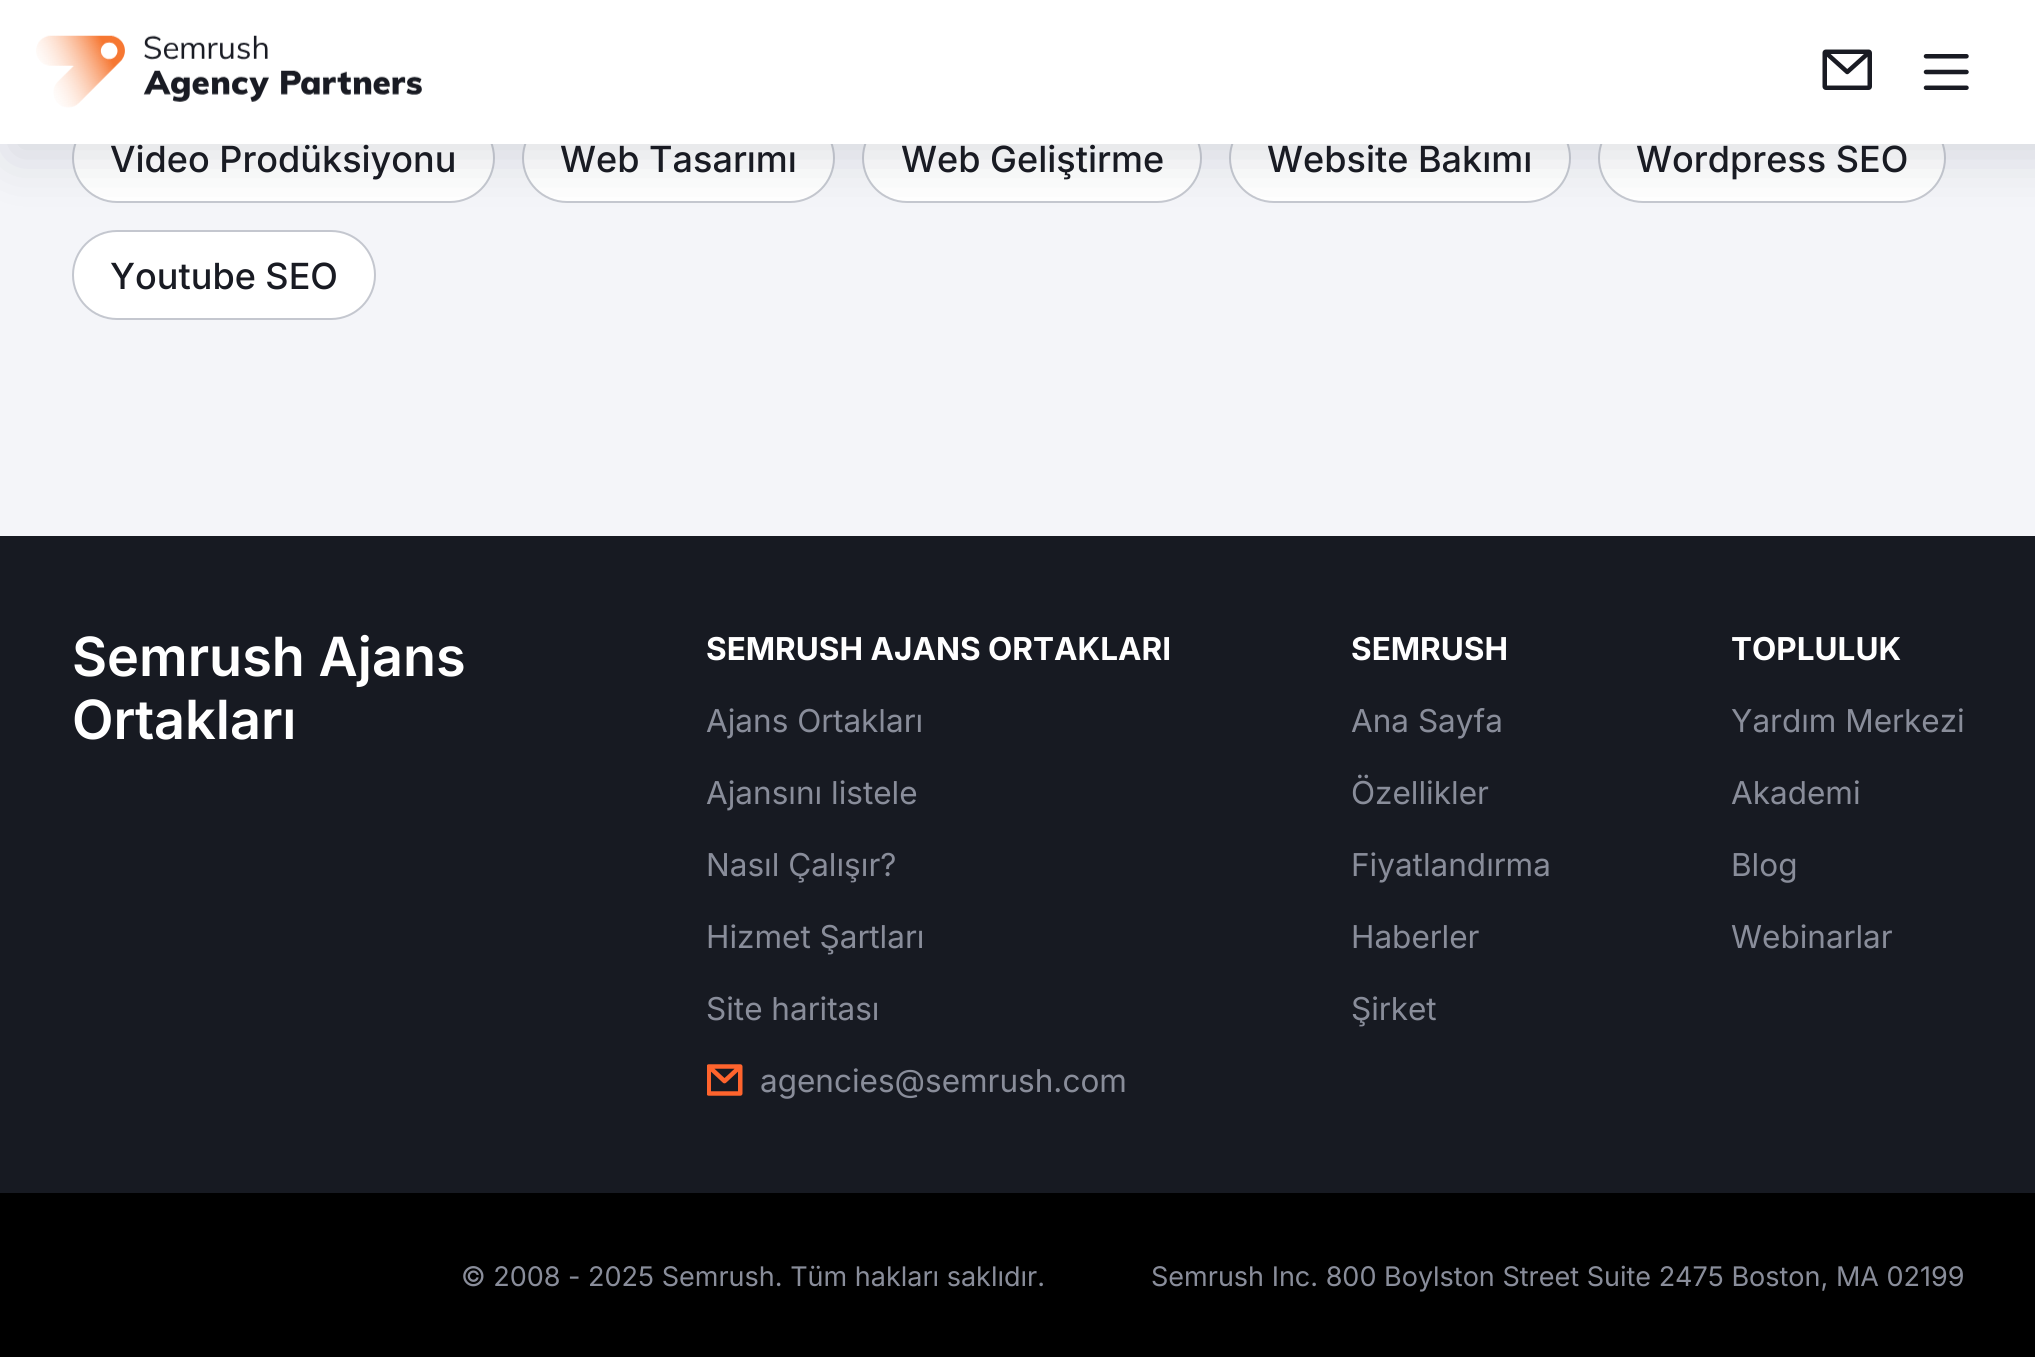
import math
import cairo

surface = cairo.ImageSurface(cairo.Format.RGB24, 2035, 1357)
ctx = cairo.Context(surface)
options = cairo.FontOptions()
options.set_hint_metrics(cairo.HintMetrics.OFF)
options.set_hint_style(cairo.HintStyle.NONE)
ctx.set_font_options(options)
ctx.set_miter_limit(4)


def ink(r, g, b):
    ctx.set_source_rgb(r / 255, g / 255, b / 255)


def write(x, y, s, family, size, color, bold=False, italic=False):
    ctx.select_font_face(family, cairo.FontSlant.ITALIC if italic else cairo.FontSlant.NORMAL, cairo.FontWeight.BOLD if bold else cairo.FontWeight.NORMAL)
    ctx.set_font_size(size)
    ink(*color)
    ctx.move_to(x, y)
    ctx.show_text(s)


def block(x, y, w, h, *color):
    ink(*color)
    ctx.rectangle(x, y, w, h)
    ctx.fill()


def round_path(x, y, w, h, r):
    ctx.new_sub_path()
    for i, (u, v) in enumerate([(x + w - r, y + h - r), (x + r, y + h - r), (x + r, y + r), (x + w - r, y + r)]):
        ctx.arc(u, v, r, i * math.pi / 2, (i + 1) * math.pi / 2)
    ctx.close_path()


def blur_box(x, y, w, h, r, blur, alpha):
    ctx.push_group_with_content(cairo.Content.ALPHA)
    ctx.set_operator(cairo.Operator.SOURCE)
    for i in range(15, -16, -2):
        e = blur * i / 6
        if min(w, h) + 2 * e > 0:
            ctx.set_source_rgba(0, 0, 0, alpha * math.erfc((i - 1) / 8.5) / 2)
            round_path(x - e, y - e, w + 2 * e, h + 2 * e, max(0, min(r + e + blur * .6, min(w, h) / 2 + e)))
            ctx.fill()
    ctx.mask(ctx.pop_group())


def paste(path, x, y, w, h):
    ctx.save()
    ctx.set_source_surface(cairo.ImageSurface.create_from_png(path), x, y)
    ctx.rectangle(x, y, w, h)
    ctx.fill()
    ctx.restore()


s1 = dict(family="Inter Medium", size=36, color=(25, 27, 35))
s2 = dict(family="Inter SemiBold", size=54, color=(255, 255, 255))
s3 = dict(family="Inter", size=31.5, color=(255, 255, 255), bold=True)
s4 = dict(family="Inter", size=31.5, color=(137, 141, 154))
s5 = dict(family="Inter", size=27, color=(137, 141, 154))

ink(244, 245, 249)
ctx.paint()
ink(255, 255, 255)
round_path(73, 114, 421, 88, 44)
ctx.fill_preserve()
ink(196, 199, 207)
ctx.stroke()
ink(255, 255, 255)
round_path(523, 114, 311, 88, 44)
ctx.fill_preserve()
ink(196, 199, 207)
ctx.stroke()
ink(255, 255, 255)
round_path(863, 114, 338, 88, 44)
ctx.fill_preserve()
ink(196, 199, 207)
ctx.stroke()
ink(255, 255, 255)
round_path(1230, 114, 340, 88, 44)
ctx.fill_preserve()
ink(196, 199, 207)
ctx.stroke()
ink(255, 255, 255)
round_path(1599, 114, 346, 88, 44)
ctx.fill_preserve()
ink(196, 199, 207)
ctx.stroke()
ink(255, 255, 255)
round_path(73, 231, 302, 88, 44)
ctx.fill_preserve()
ink(196, 199, 207)
ctx.stroke()
ink(137, 141, 154)
blur_box(11, 11, 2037, 144, 0, 28, 0.3)
block(0, 0, 2035, 144, 255, 255, 255)
paste("pic1.png", 36, 35, 386, 73)
paste("pic2.png", 1822, 49, 50, 41)
paste("pic3.png", 1923, 54, 46, 36)
write(110, 172, "Video Prodüksiyonu", **s1)
write(560, 172, "Web Tasarımı", **s1)
write(901, 172, "Web Geliştirme", **s1)
write(1267, 172, "Website Bakımı", **s1)
write(1636, 172, "Wordpress SEO", **s1)
write(110, 289, "Youtube SEO", **s1)
block(0, 536, 2035, 657, 23, 26, 34)
write(72, 676, "Semrush Ajans", **s2)
write(72, 739, "Ortakları", **s2)
write(706, 660, "SEMRUSH AJANS ORTAKLARI", **s3)
write(706, 732, "Ajans Ortakları", **s4)
write(706, 804, "Ajansını listele", **s4)
write(706, 876, "Nasıl Çalışır?", **s4)
write(706, 948, "Hizmet Şartları", **s4)
write(706, 1020, "Site haritası", **s4)
paste("pic4.png", 707, 1064, 36, 32)
write(760, 1092, "agencies@semrush.com", **s4)
write(1351, 660, "SEMRUSH", **s3)
write(1351, 732, "Ana Sayfa", **s4)
write(1351, 804, "Özellikler", **s4)
write(1351, 876, "Fiyatlandırma", **s4)
write(1351, 948, "Haberler", **s4)
write(1351, 1020, "Şirket", **s4)
write(1731, 660, "TOPLULUK", **s3)
write(1731, 732, "Yardım Merkezi", **s4)
write(1731, 804, "Akademi", **s4)
write(1731, 876, "Blog", **s4)
write(1731, 948, "Webinarlar", **s4)
block(0, 1193, 2035, 164, 0, 0, 0)
write(461, 1286, "© 2008 - 2025 Semrush. Tüm hakları saklıdır.", **s5)
write(1151, 1286, "Semrush Inc. 800 Boylston Street Suite 2475 Boston, MA 02199", **s5)
surface.write_to_png("screenshot.png")
